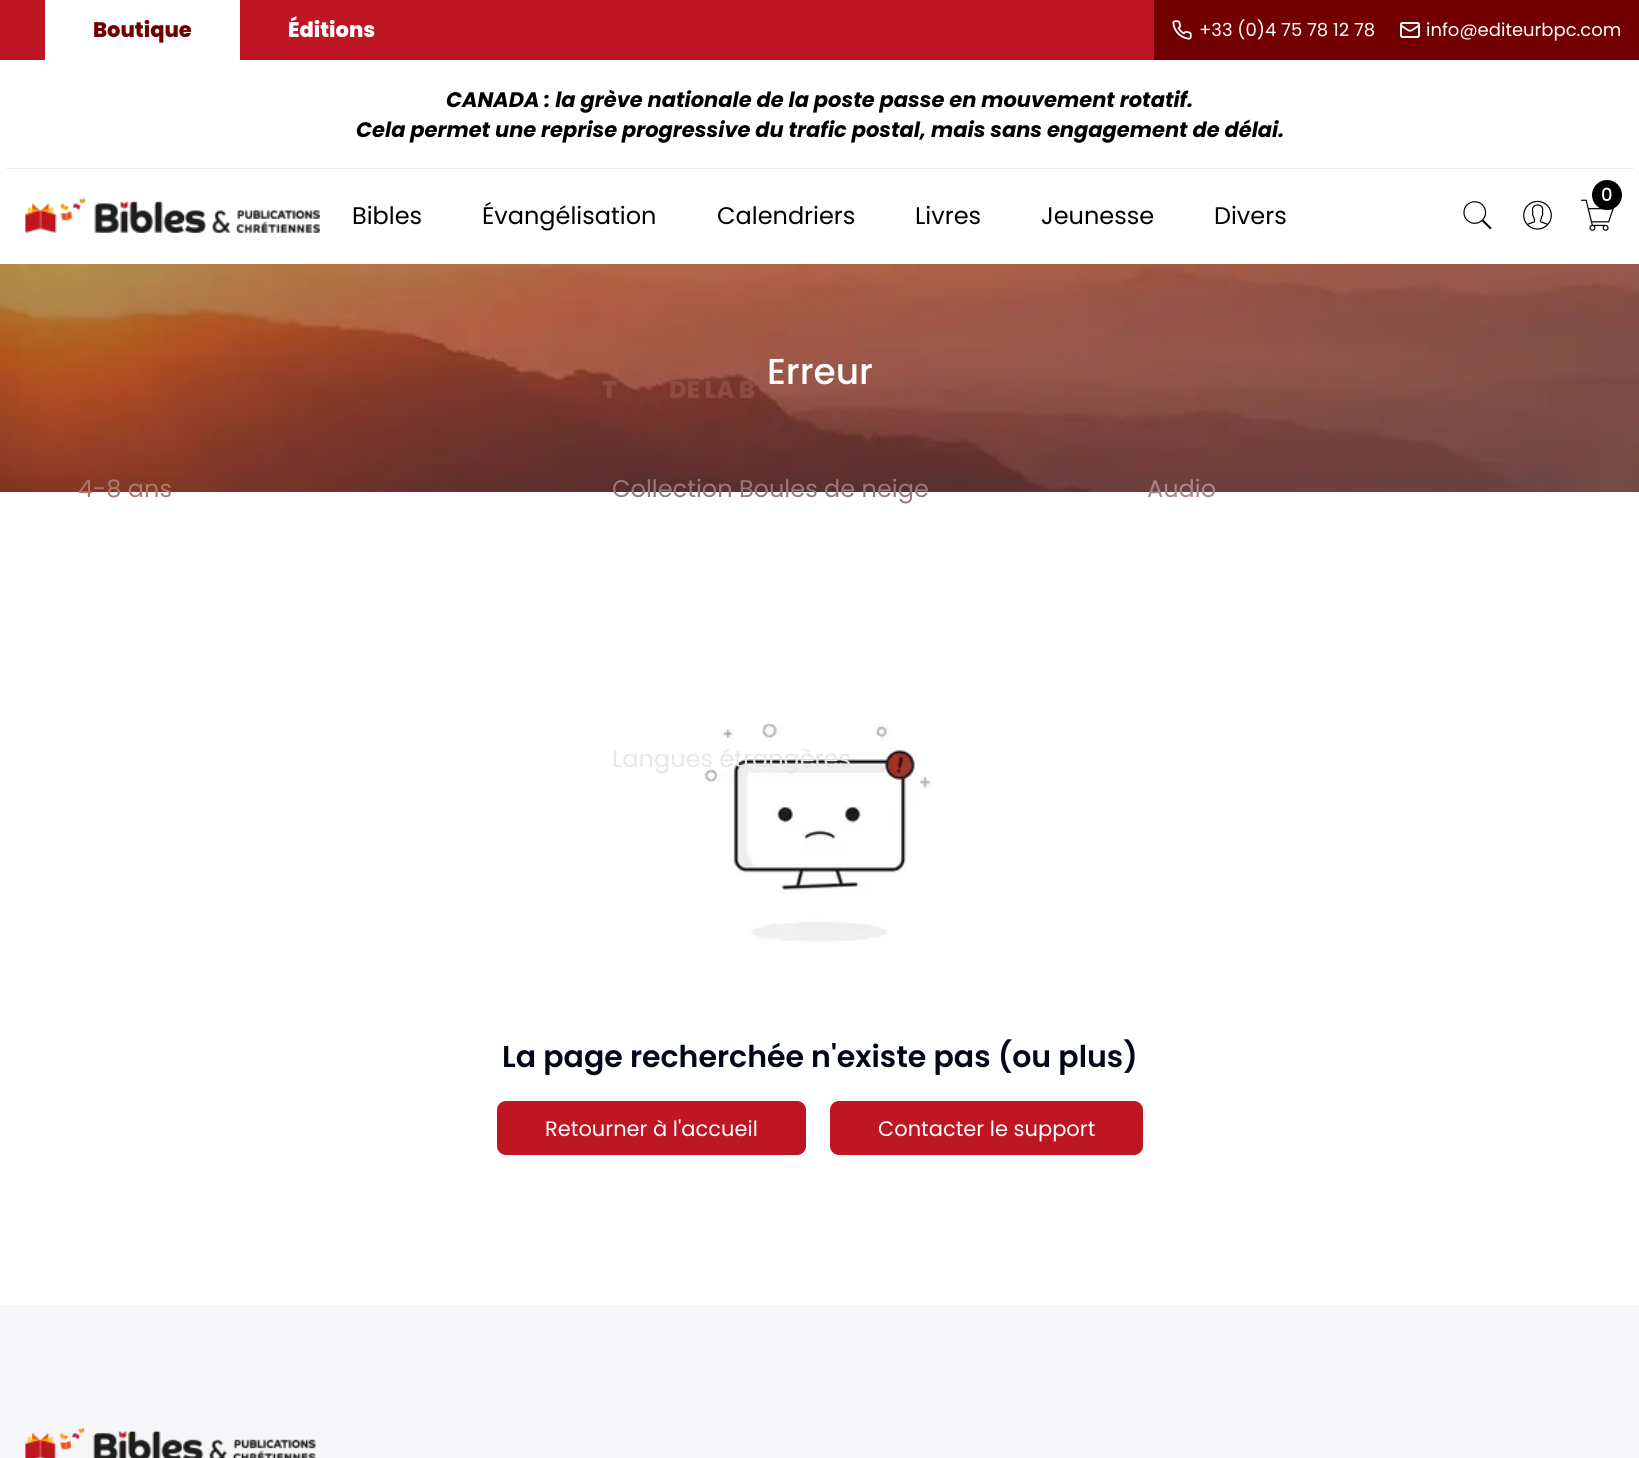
import math
import cairo

surface = cairo.ImageSurface(cairo.Format.RGB24, 1639, 1458)
ctx = cairo.Context(surface)
options = cairo.FontOptions()
options.set_hint_metrics(cairo.HintMetrics.OFF)
options.set_hint_style(cairo.HintStyle.NONE)
ctx.set_font_options(options)
ctx.set_miter_limit(4)


def ink(r, g, b):
    ctx.set_source_rgb(r / 255, g / 255, b / 255)


def write(x, y, s, family, size, color, bold=False, italic=False):
    ctx.select_font_face(family, cairo.FontSlant.ITALIC if italic else cairo.FontSlant.NORMAL, cairo.FontWeight.BOLD if bold else cairo.FontWeight.NORMAL)
    ctx.set_font_size(size)
    ink(*color)
    ctx.move_to(x, y)
    ctx.show_text(s)


def block(x, y, w, h, *color):
    ink(*color)
    ctx.rectangle(x, y, w, h)
    ctx.fill()


def round_path(x, y, w, h, r):
    ctx.new_sub_path()
    for i, (u, v) in enumerate([(x + w - r, y + h - r), (x + r, y + h - r), (x + r, y + r), (x + w - r, y + r)]):
        ctx.arc(u, v, r, i * math.pi / 2, (i + 1) * math.pi / 2)
    ctx.close_path()


def blur_box(x, y, w, h, r, blur, alpha):
    ctx.push_group_with_content(cairo.Content.ALPHA)
    ctx.set_operator(cairo.Operator.SOURCE)
    for i in range(15, -16, -2):
        e = blur * i / 6
        if min(w, h) + 2 * e > 0:
            ctx.set_source_rgba(0, 0, 0, alpha * math.erfc((i - 1) / 8.5) / 2)
            round_path(x - e, y - e, w + 2 * e, h + 2 * e, max(0, min(r + e + blur * .6, min(w, h) / 2 + e)))
            ctx.fill()
    ctx.mask(ctx.pop_group())


def paste(path, x, y, w, h):
    ctx.save()
    ctx.set_source_surface(cairo.ImageSurface.create_from_png(path), x, y)
    ctx.rectangle(x, y, w, h)
    ctx.fill()
    ctx.restore()


s1 = dict(family="Poppins ExtraBold", size=21, color=(114, 0, 0))
s2 = dict(family="Poppins ExtraBold", size=21, color=(255, 255, 255))
s3 = dict(family="Poppins", size=18, color=(255, 255, 255))
s4 = dict(family="Poppins", size=21, color=(0, 0, 0), bold=True, italic=True)
s5 = dict(family="Poppins Medium", size=18, color=(255, 255, 255))
s6 = dict(family="Poppins", size=24, color=(0, 0, 0))
s7 = dict(family="Poppins", size=24, color=(231, 231, 231))
s8 = dict(family="Poppins ExtraBold", size=24, color=(140, 76, 63))
s9 = dict(family="Poppins", size=24, color=(173, 121, 109))
s10 = dict(family="Poppins", size=24, color=(151, 123, 123))
s11 = dict(family="Poppins", size=24, color=(166, 136, 135))
s12 = dict(family="Poppins Medium", size=36, color=(255, 255, 255))
s13 = dict(family="Poppins SemiBold", size=30, color=(2, 8, 23))
s14 = dict(family="Poppins", size=21, color=(255, 255, 255))

ink(255, 255, 255)
ctx.paint()
block(0, 0, 1154, 60, 190, 22, 35)
block(45, 0, 195, 60, 255, 255, 255)
write(93, 37, "Boutique", **s1)
write(288, 37, "Éditions", **s2)
block(1154, 0, 485, 60, 114, 0, 0)
paste("pic1.png", 1172, 20, 20, 20)
write(1199, 36, "+33 (0)4 75 78 12 78", **s3)
round_path(1401, 23, 18, 14, 1.5)
ctx.stroke()
ctx.new_path()
ctx.move_to(1419, 25.5)
ctx.curve_to(1408, 32.5, 1412, 32.5, 1401, 25.5)
ctx.set_line_width(1.8)
ctx.set_line_cap(cairo.LineCap.ROUND)
ctx.set_line_join(cairo.LineJoin.ROUND)
ctx.stroke()
write(1426, 36, "info@editeurbpc.com", **s3)
ctx.save()
ctx.rectangle(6, 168, 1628, 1)
ctx.clip()
ink(0, 0, 0)
blur_box(6, 72, 1628, 96, 0, 1, 0.2)
ctx.restore()
write(446, 107, "CANADA : la grève nationale de la poste passe en mouvement rotatif.", **s4)
write(356, 137, "Cela permet une reprise progressive du trafic postal, mais sans engagement de délai.", **s4)
paste("pic2.png", 1581, 199, 33, 32)
ctx.arc(1607, 195, 15, 0, 2 * math.pi)
ctx.fill()
write(1601, 201, "0", **s5)
paste("pic3.png", 1463, 201, 29, 29)
paste("pic4.png", 1523, 200, 29, 30)
paste("pic5.png", 25, 197, 295, 36)
write(482, 224, "Évangélisation", **s6)
write(352, 224, "Bibles", **s6)
paste("pic7.png", 703, 723, 229, 220)
write(612, 767, "Langues étrangères", **s7)
write(915, 224, "Livres", **s6)
paste("pic6.png", 0, 264, 1639, 228)
write(602, 398, "T", **s8)
write(669, 398, "DE LA B", **s8)
write(717, 224, "Calendriers", **s6)
write(1214, 224, "Divers", **s6)
write(1041, 224, "Jeunesse", **s6)
write(78, 497, "4-8 ans", **s9)
write(612, 497, "Collection Boules de neige", **s10)
write(1147, 497, "Audio", **s11)
write(767, 384, "Erreur", **s12)
write(502, 1067, "La page recherchée n'existe pas (ou plus)", **s13)
ink(190, 22, 35)
round_path(497, 1101, 309, 54, 9)
ctx.fill()
write(545, 1136, "Retourner à l'accueil", **s14)
ink(190, 22, 35)
round_path(830, 1101, 313, 54, 9)
ctx.fill()
write(878, 1136, "Contacter le support", **s14)
block(0, 1305, 1639, 153, 246, 246, 248)
paste("pic8.png", 25, 1427, 291, 31)
surface.write_to_png("screenshot.png")
